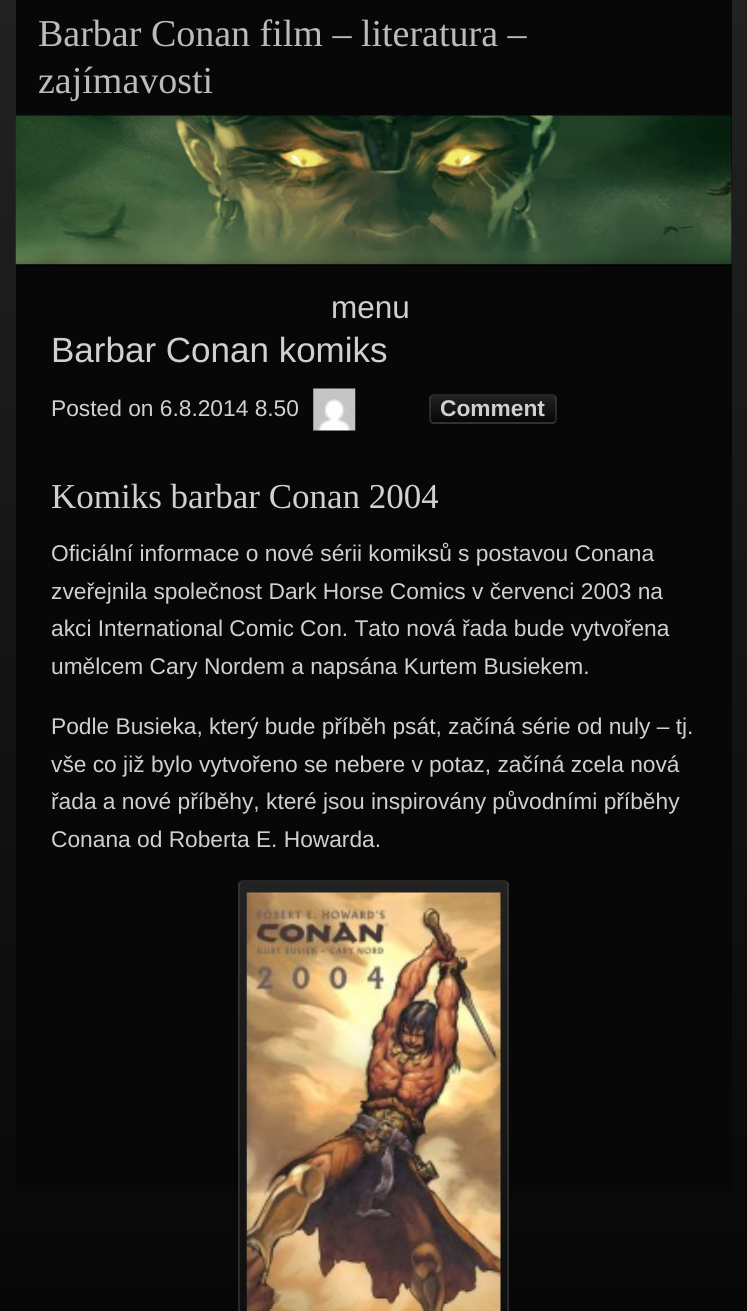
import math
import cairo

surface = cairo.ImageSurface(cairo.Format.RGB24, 747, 1311)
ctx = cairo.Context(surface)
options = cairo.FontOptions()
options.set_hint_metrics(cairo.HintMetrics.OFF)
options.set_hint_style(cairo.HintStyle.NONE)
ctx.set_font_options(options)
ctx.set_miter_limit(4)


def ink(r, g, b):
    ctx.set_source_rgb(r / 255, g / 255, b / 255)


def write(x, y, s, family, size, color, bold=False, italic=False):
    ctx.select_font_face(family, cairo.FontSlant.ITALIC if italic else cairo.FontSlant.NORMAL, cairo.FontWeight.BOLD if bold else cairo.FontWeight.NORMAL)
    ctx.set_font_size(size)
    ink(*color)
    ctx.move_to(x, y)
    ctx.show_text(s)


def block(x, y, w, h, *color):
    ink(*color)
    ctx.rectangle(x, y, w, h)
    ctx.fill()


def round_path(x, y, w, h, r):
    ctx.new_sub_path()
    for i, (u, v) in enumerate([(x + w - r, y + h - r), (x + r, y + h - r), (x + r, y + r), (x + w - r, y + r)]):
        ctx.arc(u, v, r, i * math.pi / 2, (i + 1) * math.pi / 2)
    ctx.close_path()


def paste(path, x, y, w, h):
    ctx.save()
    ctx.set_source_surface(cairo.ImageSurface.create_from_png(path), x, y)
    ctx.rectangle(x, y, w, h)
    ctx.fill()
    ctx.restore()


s1 = dict(family="Liberation Serif", size=38, color=(187, 187, 187))
s2 = dict(family="Liberation Sans", size=31.5, color=(208, 208, 208))
s3 = dict(family="Liberation Sans", size=35, color=(208, 208, 208))
s4 = dict(family="Liberation Sans", size=22.75, color=(208, 208, 208))
s5 = dict(family="Liberation Sans", size=22.75, color=(208, 208, 208), bold=True)
s6 = dict(family="Liberation Serif", size=35, color=(208, 208, 208))

ink(255, 255, 255)
ctx.paint()
gradient = cairo.LinearGradient(0, 0, 0, 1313)
gradient.add_color_stop_rgba(0, 0.133, 0.133, 0.133, 1)
gradient.add_color_stop_rgba(1, 0.027, 0.027, 0.027, 1)
ctx.set_source(gradient)
ctx.rectangle(0, 0, 747, 1311)
ctx.fill()
block(16, 0, 716, 1191, 7, 7, 7)
write(38, 46, "Barbar Conan film – literatura –", **s1)
write(38, 93, "zajímavosti", **s1)
block(16, 116, 716, 150, 0, 0, 0)
paste("pic1.png", 15, 115, 717, 150)
write(331, 318, "menu", **s2)
write(51, 362, "Barbar Conan komiks", **s3)
write(51, 416, "Posted on 6.8.2014 8.50", **s4)
paste("pic2.png", 313, 388, 43, 43)
ctx.save()
round_path(429, 394, 128, 30, 5)
ctx.clip()
gradient = cairo.LinearGradient(431, 396, 431, 422)
gradient.add_color_stop_rgba(0, 0.133, 0.133, 0.133, 1)
gradient.add_color_stop_rgba(1, 0.027, 0.027, 0.027, 1)
ctx.set_source(gradient)
ctx.rectangle(429, 396, 128, 26)
ctx.fill()
gradient = cairo.LinearGradient(431, 422, 431, 448)
gradient.add_color_stop_rgba(0, 0.133, 0.133, 0.133, 1)
gradient.add_color_stop_rgba(1, 0.027, 0.027, 0.027, 1)
ctx.set_source(gradient)
ctx.rectangle(429, 422, 128, 2)
ctx.fill()
ctx.restore()
round_path(430, 395, 126, 28, 4)
ctx.set_source_rgba(0.267, 0.267, 0.267, 0.5)
ctx.stroke()
write(440, 416, "Comment", **s5)
write(51, 508, "Komiks barbar Conan 2004", **s6)
write(51, 561, "Oficiální informace o nové sérii komiksů s postavou Conana", **s4)
write(51, 599, "zveřejnila společnost Dark Horse Comics v červenci 2003 na", **s4)
write(51, 636, "akci International Comic Con. Tato nová řada bude vytvořena", **s4)
write(51, 674, "umělcem Cary Nordem a napsána Kurtem Busiekem.", **s4)
write(51, 734, "Podle Busieka, který bude příběh psát, začíná série od nuly – tj.", **s4)
write(51, 772, "vše co již bylo vytvořeno se nebere v potaz, začíná zcela nová", **s4)
write(51, 809, "řada a nové příběhy, které jsou inspirovány původními příběhy", **s4)
write(51, 847, "Conana od Roberta E. Howarda.", **s4)
ctx.save()
round_path(238, 880, 271, 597, 5)
ctx.clip()
gradient = cairo.LinearGradient(240, 882, 240, 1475)
gradient.add_color_stop_rgba(0, 0.133, 0.133, 0.133, 1)
gradient.add_color_stop_rgba(1, 0.027, 0.027, 0.027, 1)
ctx.set_source(gradient)
ctx.rectangle(238, 882, 271, 429)
ctx.fill()
ctx.restore()
round_path(239, 881, 269, 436, 4)
ctx.set_source_rgba(0.267, 0.267, 0.267, 0.5)
ctx.stroke()
paste("pic3.png", 246, 892, 255, 419)
surface.write_to_png("screenshot.png")
